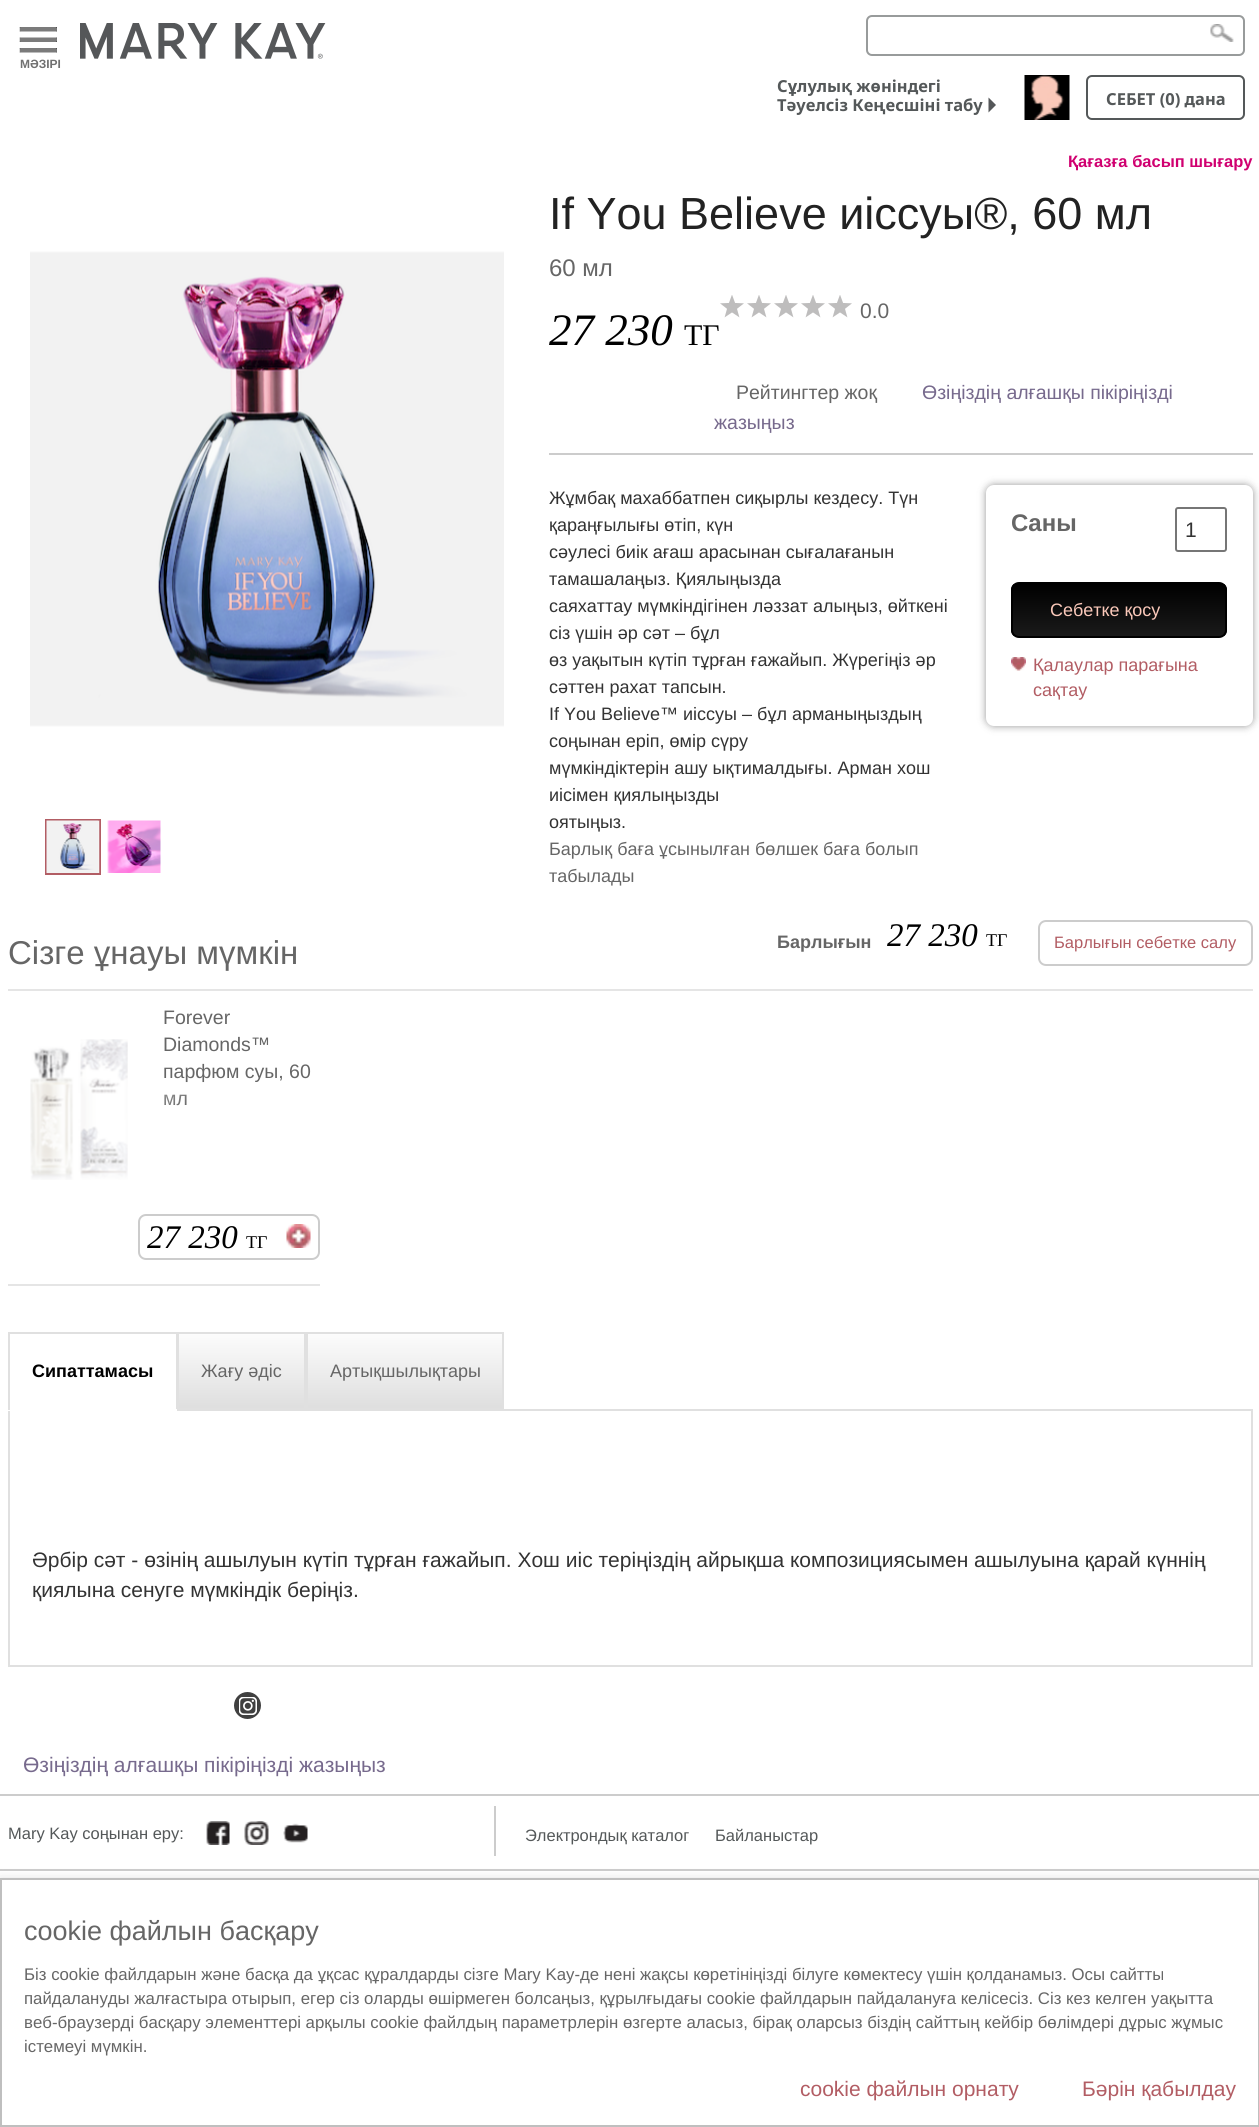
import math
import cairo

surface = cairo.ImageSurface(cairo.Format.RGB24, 1259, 2127)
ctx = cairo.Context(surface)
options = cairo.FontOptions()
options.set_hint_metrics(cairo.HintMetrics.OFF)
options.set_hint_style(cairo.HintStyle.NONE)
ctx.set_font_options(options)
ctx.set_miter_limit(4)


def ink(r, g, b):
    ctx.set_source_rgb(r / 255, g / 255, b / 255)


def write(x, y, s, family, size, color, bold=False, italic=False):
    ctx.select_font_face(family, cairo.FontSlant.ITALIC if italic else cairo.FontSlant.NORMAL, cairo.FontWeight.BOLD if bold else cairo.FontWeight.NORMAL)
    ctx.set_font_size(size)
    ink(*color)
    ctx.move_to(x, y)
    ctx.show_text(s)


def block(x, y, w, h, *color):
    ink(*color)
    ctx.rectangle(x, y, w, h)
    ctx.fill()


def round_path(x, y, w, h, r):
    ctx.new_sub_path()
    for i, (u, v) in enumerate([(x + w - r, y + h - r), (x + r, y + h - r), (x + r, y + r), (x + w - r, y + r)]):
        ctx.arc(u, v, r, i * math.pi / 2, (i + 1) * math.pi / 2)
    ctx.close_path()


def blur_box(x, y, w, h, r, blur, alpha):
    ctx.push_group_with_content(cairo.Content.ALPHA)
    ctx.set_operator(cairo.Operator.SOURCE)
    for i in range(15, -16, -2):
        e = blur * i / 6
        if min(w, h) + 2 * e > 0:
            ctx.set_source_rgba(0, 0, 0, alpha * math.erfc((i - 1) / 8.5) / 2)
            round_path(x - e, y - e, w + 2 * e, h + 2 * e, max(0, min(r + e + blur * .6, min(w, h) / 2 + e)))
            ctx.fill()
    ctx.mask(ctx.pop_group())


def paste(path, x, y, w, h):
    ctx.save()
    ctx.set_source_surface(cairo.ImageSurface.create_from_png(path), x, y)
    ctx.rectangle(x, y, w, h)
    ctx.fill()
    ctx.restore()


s1 = dict(family="Liberation Sans", size=12, color=(112, 112, 112), bold=True)
s2 = dict(family="Noto Sans", size=16.5, color=(84, 88, 89), bold=True)
s3 = dict(family="Liberation Sans", size=16.5, color=(208, 0, 112), bold=True)
s4 = dict(family="Liberation Sans", size=45, color=(34, 34, 34))
s5 = dict(family="Liberation Sans", size=24, color=(102, 102, 102))
s6 = dict(family="Liberation Serif", size=45, color=(0, 0, 0), italic=True)
s7 = dict(family="Liberation Serif", size=30, color=(0, 0, 0))
s8 = dict(family="Liberation Sans", size=21, color=(102, 102, 102))
s9 = dict(family="Liberation Sans", size=19.5, color=(102, 102, 102))
s10 = dict(family="Liberation Sans", size=19.5, color=(119, 106, 141))
s11 = dict(family="Liberation Sans", size=18, color=(51, 51, 51))
s12 = dict(family="Liberation Sans", size=18, color=(102, 102, 102))
s13 = dict(family="Liberation Sans", size=24, color=(102, 102, 102), bold=True)
s14 = dict(family="Liberation Sans", size=21, color=(51, 51, 51))
s15 = dict(family="Liberation Sans", size=18, color=(251, 201, 186))
s16 = dict(family="Liberation Sans", size=18, color=(178, 93, 100))
s17 = dict(family="Liberation Sans", size=33, color=(102, 102, 102))
s18 = dict(family="Liberation Sans", size=18, color=(102, 102, 102), bold=True)
s19 = dict(family="Liberation Serif", size=33, color=(0, 0, 0), italic=True)
s20 = dict(family="Liberation Serif", size=18, color=(0, 0, 0))
s21 = dict(family="Liberation Sans", size=16.5, color=(178, 93, 100))
s22 = dict(family="Liberation Sans", size=18, color=(0, 0, 0), bold=True)
s23 = dict(family="Liberation Sans", size=21, color=(119, 106, 141))
s24 = dict(family="Liberation Sans", size=16.5, color=(84, 88, 89))
s25 = dict(family="Liberation Sans", size=27, color=(102, 102, 102))
s26 = dict(family="Liberation Sans", size=16.8, color=(102, 102, 102))
s27 = dict(family="Liberation Sans", size=21, color=(178, 93, 100))

ink(255, 255, 255)
ctx.paint()
paste("pic1.png", 1210, 24, 24, 18)
ctx.set_source_rgba(1, 1, 1, 0.6)
round_path(867, 16, 377, 39, 5)
ctx.fill_preserve()
ink(152, 155, 155)
ctx.stroke()
paste("pic2.png", 80, 23, 246, 36)
paste("pic3.png", 19, 27, 38, 26)
write(20, 68, "MӘЗІРІ", **s1)
write(777, 92, "Сұлулық жөніндегі", **s2)
write(777, 111, "Тәуелсіз Кеңесшіні табу", **s2)
ink(85, 87, 89)
ctx.new_path()
ctx.move_to(988.5, 112.5)
ctx.line_to(988.5, 97.5)
ctx.line_to(996, 105)
ctx.close_path()
ctx.fill()
paste("pic4.png", 1024, 75, 46, 45)
round_path(1087, 76, 157, 43, 5)
ink(84, 88, 89)
ctx.stroke()
write(1106, 105, "СЕБЕТ (0) дана", **s2)
write(1068, 167, "Қағазға басып шығару", **s3)
paste("pic5.png", 30, 251, 474, 476)
ctx.rectangle(46, 820, 54, 54)
ink(178, 93, 100)
ctx.stroke()
paste("pic6.png", 46, 820, 54, 53)
paste("pic7.png", 107, 820, 54, 53)
block(549, 453, 704, 2, 204, 204, 204)
write(549, 229, "If You Believe иіссуы®, 60 мл", **s4)
write(549, 276, "60 мл", **s5)
write(549, 345, "27 230", **s6)
write(684, 345, "ТГ", **s7)
paste("pic8.png", 720, 295, 24, 23)
paste("pic8.png", 747, 295, 24, 23)
paste("pic8.png", 774, 295, 24, 23)
paste("pic8.png", 801, 295, 24, 23)
paste("pic8.png", 828, 295, 24, 23)
write(860, 318, "0.0", **s8)
write(736, 399, "Рейтингтер жоқ", **s9)
write(922, 399, "Өзіңіздің алғашқы пікіріңізді", **s10)
write(714, 429, "жазыңыз", **s10)
write(549, 504, "Жұмбақ махаббатпен сиқырлы кездесу. Түн", **s11)
write(549, 531, "қараңғылығы өтіп, күн", **s11)
write(549, 558, "сәулесі биік ағаш арасынан сығалағанын", **s11)
write(549, 585, "тамашалаңыз. Қиялыңызда", **s11)
write(549, 612, "саяхаттау мүмкіндігінен ләззат алыңыз, өйткені", **s11)
write(549, 639, "сіз үшін әр сәт – бұл", **s11)
write(549, 666, "өз уақытын күтіп тұрған ғажайып. Жүрегіңіз әр", **s11)
write(549, 693, "сәттен рахат тапсын.", **s11)
write(549, 720, "If You Believe™ иіссуы – бұл арманыңыздың", **s11)
write(549, 747, "соңынан еріп, өмір сүру", **s11)
write(549, 774, "мүмкіндіктерін ашу ықтималдығы. Арман хош", **s11)
write(549, 801, "иісімен қиялыңызды", **s11)
write(549, 828, "оятыңыз.", **s11)
write(549, 855, "Барлық баға ұсынылған бөлшек баға болып", **s12)
write(549, 882, "табылады", **s12)
ink(50, 50, 50)
blur_box(986, 485, 267, 241, 8, 4, 0.5)
ink(255, 255, 255)
round_path(986, 485, 267, 241, 8)
ctx.fill()
write(1011, 531, "Саны", **s13)
round_path(1176, 508, 50, 43, 2)
ink(118, 118, 118)
ctx.stroke()
write(1185, 537, "1", **s14)
ctx.save()
round_path(1011, 582, 216, 56, 8)
ctx.clip()
gradient = cairo.LinearGradient(1119, 584, 1119, 636)
gradient.add_color_stop_rgba(0, 0, 0, 0, 1)
gradient.add_color_stop_rgba(1, 0.102, 0.102, 0.102, 1)
ctx.set_source(gradient)
ctx.rectangle(1011, 584, 216, 52)
ctx.fill()
ctx.restore()
round_path(1012, 583, 214, 54, 7)
ink(0, 0, 0)
ctx.stroke()
write(1050, 616, "Себетке қосу", **s15)
paste("pic9.png", 1011, 657, 15, 14)
write(1033, 671, "Қалаулар парағына", **s16)
write(1033, 696, "сақтау", **s16)
block(8, 989, 1245, 2, 229, 229, 229)
write(8, 964, "Сізге ұнауы мүмкін", **s17)
write(777, 948, "Барлығын", **s18)
write(887, 946, "27 230", **s19)
write(986, 946, "ТГ", **s20)
round_path(1039, 921, 213, 44, 7)
ink(204, 204, 204)
ctx.stroke()
write(1054, 948, "Барлығын себетке салу", **s21)
block(8, 1284, 312, 2, 229, 229, 229)
paste("pic10.png", 30, 1039, 98, 141)
write(163, 1024, "Forever", **s9)
write(163, 1051, "Diamonds™", **s9)
write(163, 1078, "парфюм суы, 60", **s9)
write(163, 1105, "мл", **s9)
paste("pic11.png", 164, 1094, 23, 11)
round_path(139, 1215, 180, 44, 7)
ink(204, 204, 204)
ctx.stroke()
write(147, 1248, "27 230", **s19)
write(246, 1248, "ТГ", **s20)
paste("pic12.png", 286, 1224, 25, 24)
block(8, 1332, 169, 2, 224, 224, 224)
ctx.rectangle(9, 1410, 1243, 256)
ctx.stroke()
block(176, 1332, 1, 78, 224, 224, 224)
block(8, 1409, 169, 2, 255, 255, 255)
block(8, 1332, 2, 78, 224, 224, 224)
write(32, 1377, "Сипаттамасы", **s22)
gradient = cairo.LinearGradient(242, 1334, 242, 1409)
gradient.add_color_stop_rgba(0, 0.988, 0.988, 0.988, 1)
gradient.add_color_stop_rgba(1, 0.871, 0.871, 0.871, 1)
ctx.set_source(gradient)
ctx.rectangle(179, 1334, 125, 74)
ctx.fill()
ctx.rectangle(178, 1333, 127, 76)
ink(224, 224, 224)
ctx.stroke()
write(201, 1377, "Жағу әдіс", **s12)
gradient = cairo.LinearGradient(405, 1334, 405, 1409)
gradient.add_color_stop_rgba(0, 0.988, 0.988, 0.988, 1)
gradient.add_color_stop_rgba(1, 0.871, 0.871, 0.871, 1)
ctx.set_source(gradient)
ctx.rectangle(308, 1334, 194, 74)
ctx.fill()
ctx.rectangle(307, 1333, 196, 76)
ink(224, 224, 224)
ctx.stroke()
write(330, 1377, "Артықшылықтары", **s12)
write(32, 1567, "Әрбір сәт - өзінің ашылуын күтіп тұрған ғажайып. Хош иіс теріңіздің айрықша композициясымен ашылуына қарай күннің", **s14)
write(32, 1597, "қиялына сенуге мүмкіндік беріңіз.", **s14)
ink(64, 64, 64)
ctx.new_path()
ctx.arc(247.5, 1705.5, 13.5, 0, 2 * math.pi)
ctx.fill()
paste("pic13.png", 239, 1697, 18, 18)
write(23, 1772, "Өзіңіздің алғашқы пікіріңізді жазыңыз", **s23)
block(0, 1794, 1259, 2, 204, 204, 204)
block(0, 1869, 1259, 2, 204, 204, 204)
block(494, 1806, 2, 50, 204, 204, 204)
write(8, 1839, "Mary Kay соңынан еру:", **s24)
paste("pic14.png", 206, 1821, 24, 24)
paste("pic15.png", 244, 1821, 25, 24)
paste("pic16.png", 283, 1823, 25, 20)
write(525, 1841, "Электрондық каталог", **s24)
write(715, 1841, "Байланыстар", **s24)
ink(153, 153, 153)
blur_box(0, 1886, 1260, 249, 0, 7.5, 1)
ink(255, 255, 255)
ctx.rectangle(1, 1879, 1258, 247)
ctx.fill_preserve()
ink(191, 191, 191)
ctx.stroke()
write(24, 1940, "cookie файлын басқару", **s25)
write(24, 1980, "Біз cookie файлдарын және басқа да ұқсас құралдарды сізге Mary Kay-де нені жақсы көретініңізді білуге көмектесу үшін қолданамыз. Осы сайтты", **s26)
write(24, 2004, "пайдалануды жалғастыра отырып, егер сіз оларды өшірмеген болсаңыз, құрылғыдағы cookie файлдарын пайдалануға келісесіз. Сіз кез келген уақытта", **s26)
write(24, 2028, "веб-браузерді басқару элементтері арқылы cookie файлдың параметрлерін өзгерте аласыз, бірақ оларсыз біздің сайттың кейбір бөлімдері дұрыс жұмыс", **s26)
write(24, 2052, "істемеуі мүмкін.", **s26)
write(800, 2096, "cookie файлын орнату", **s27)
write(1082, 2096, "Бәрін қабылдау", **s27)
surface.write_to_png("screenshot.png")
